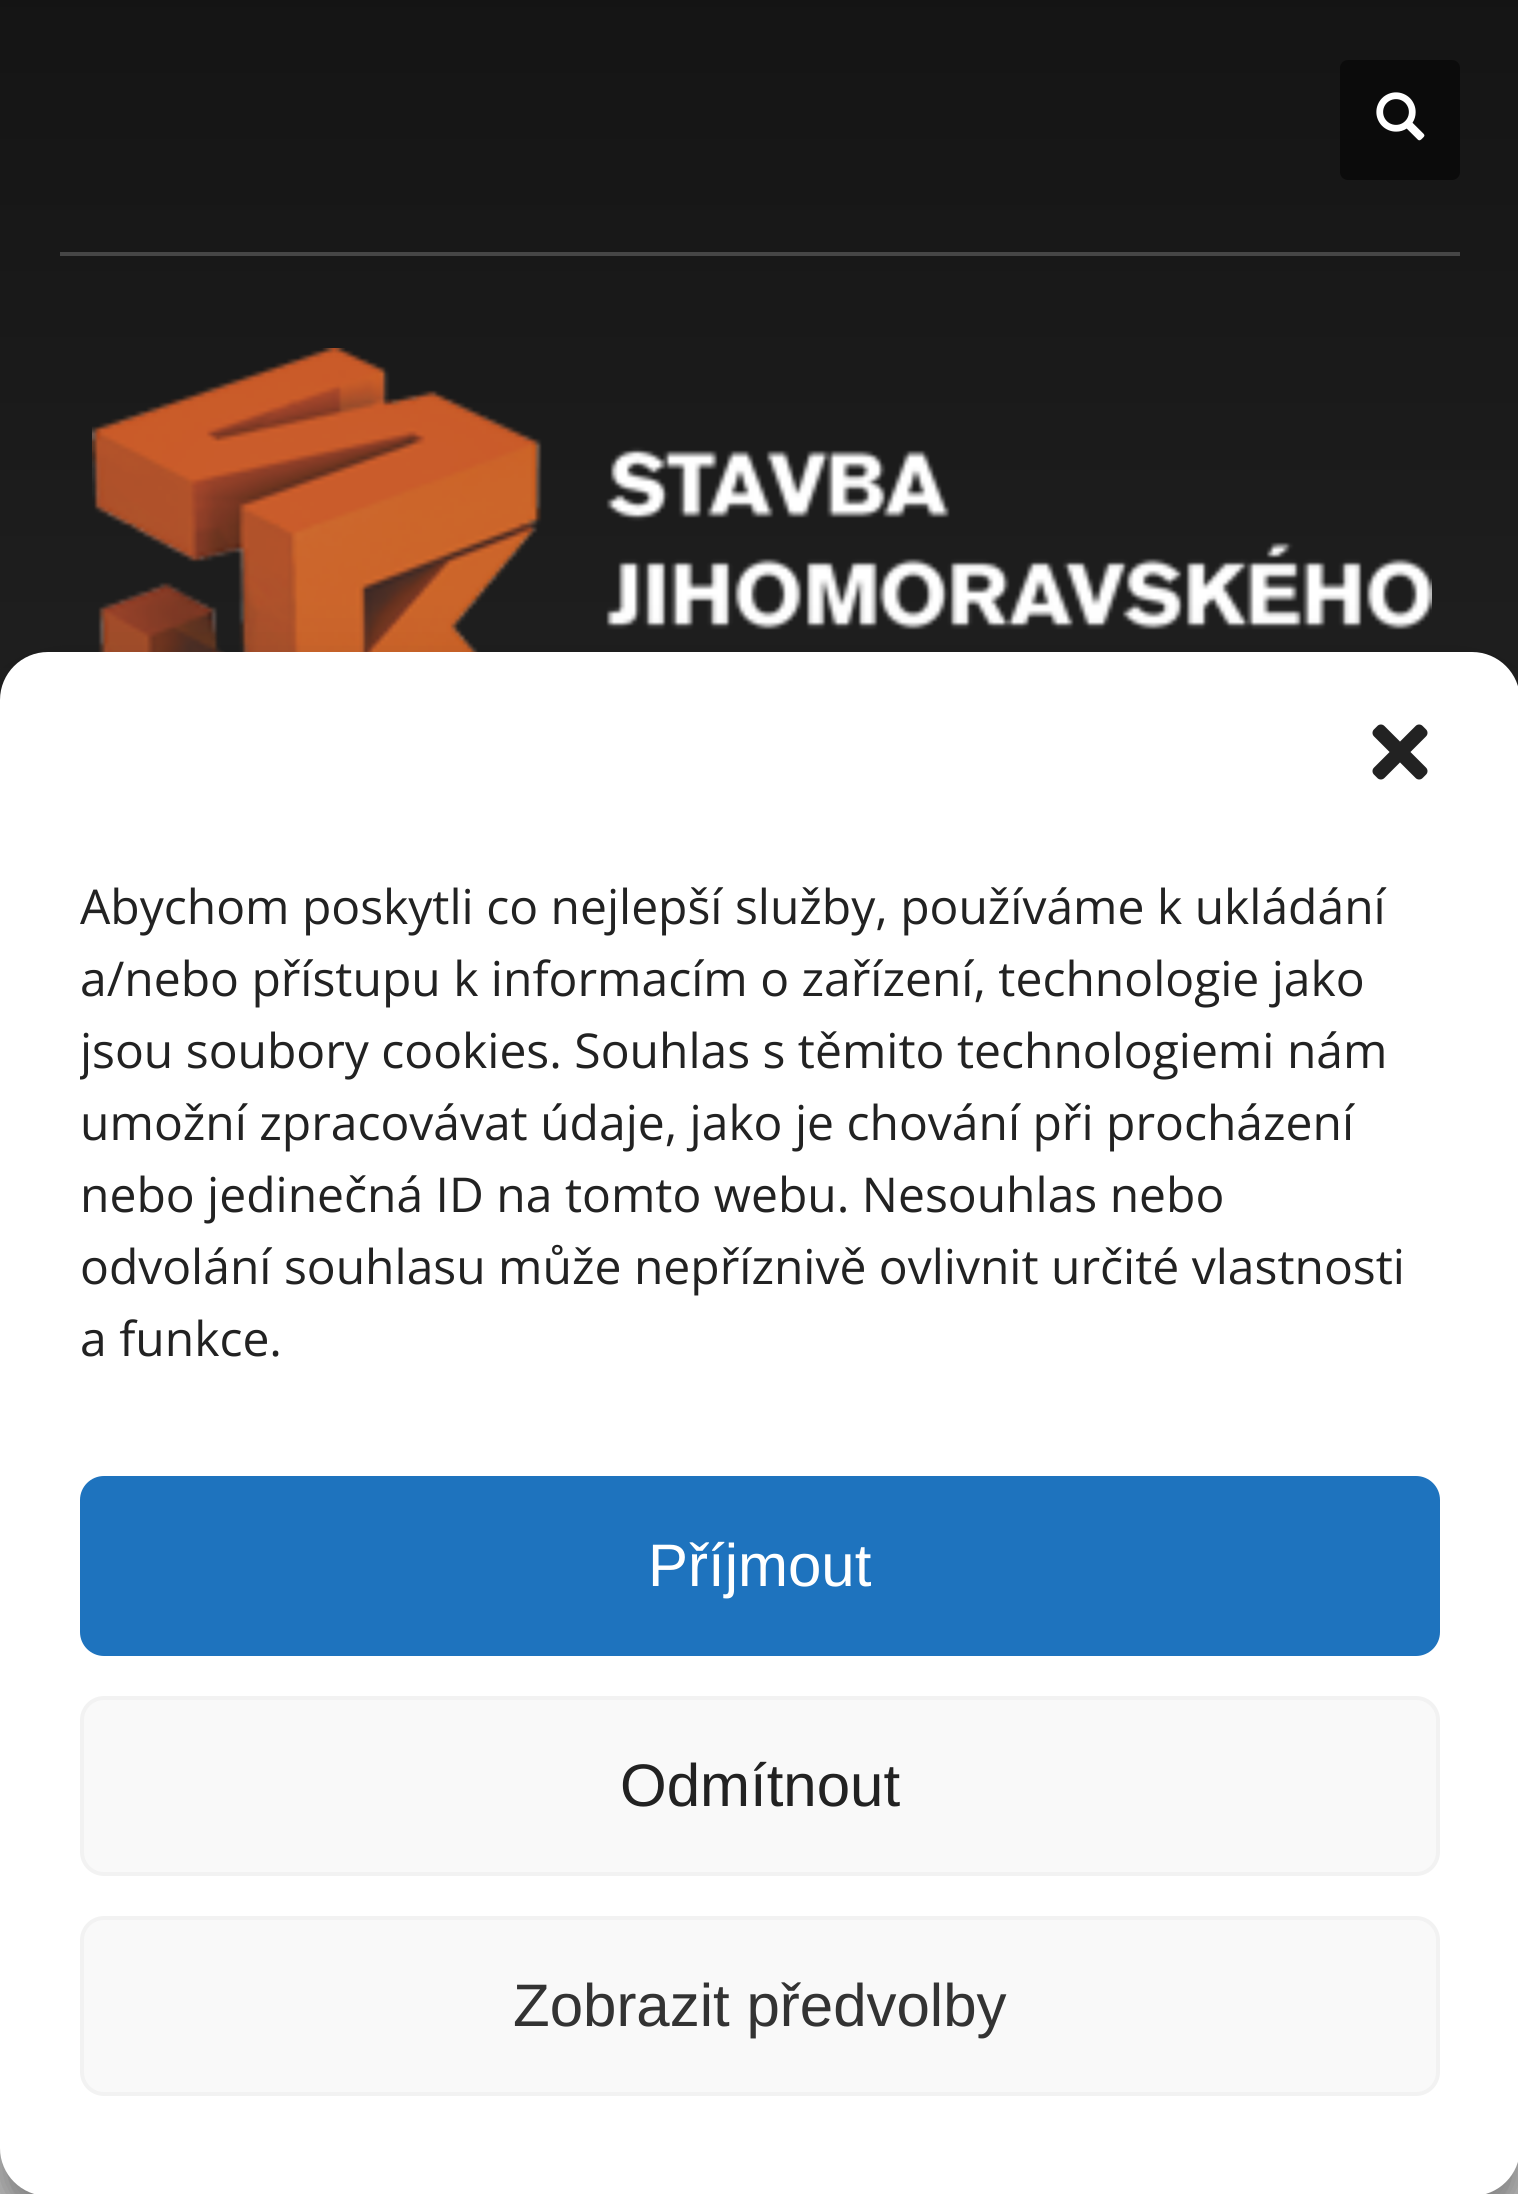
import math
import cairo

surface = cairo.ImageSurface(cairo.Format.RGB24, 1518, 2194)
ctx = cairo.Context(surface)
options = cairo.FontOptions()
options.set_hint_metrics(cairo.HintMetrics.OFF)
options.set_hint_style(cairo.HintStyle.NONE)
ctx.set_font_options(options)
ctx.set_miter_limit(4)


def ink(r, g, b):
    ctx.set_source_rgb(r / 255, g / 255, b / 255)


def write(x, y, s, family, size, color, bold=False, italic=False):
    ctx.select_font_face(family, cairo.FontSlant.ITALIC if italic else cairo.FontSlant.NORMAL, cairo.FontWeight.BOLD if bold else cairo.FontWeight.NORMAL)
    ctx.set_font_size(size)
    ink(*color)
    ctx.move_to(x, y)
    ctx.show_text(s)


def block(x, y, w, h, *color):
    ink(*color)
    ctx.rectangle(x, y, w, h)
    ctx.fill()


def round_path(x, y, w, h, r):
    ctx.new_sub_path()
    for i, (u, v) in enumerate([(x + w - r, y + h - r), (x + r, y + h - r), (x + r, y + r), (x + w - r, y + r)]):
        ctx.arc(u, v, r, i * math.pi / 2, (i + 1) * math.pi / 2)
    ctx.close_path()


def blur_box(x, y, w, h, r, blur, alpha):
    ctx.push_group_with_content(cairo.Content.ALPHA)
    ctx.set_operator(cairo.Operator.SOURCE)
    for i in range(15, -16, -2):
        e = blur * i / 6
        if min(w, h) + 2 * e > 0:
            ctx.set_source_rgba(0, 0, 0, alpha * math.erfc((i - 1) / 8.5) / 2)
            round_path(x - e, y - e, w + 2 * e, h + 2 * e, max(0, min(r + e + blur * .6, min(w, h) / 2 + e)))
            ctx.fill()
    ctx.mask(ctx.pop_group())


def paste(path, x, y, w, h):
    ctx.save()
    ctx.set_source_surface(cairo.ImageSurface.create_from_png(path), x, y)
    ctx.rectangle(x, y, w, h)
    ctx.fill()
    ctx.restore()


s1 = dict(family="Open Sans", size=48, color=(34, 34, 34))
s2 = dict(family="Liberation Sans", size=60, color=(255, 255, 255))
s3 = dict(family="Liberation Sans", size=60, color=(34, 34, 34))
s4 = dict(family="Liberation Sans", size=60, color=(51, 51, 51))

ink(200, 200, 200)
ctx.paint()
block(0, 0, 1518, 700, 51, 51, 51)
gradient = cairo.LinearGradient(760, 0, 760, 2024)
gradient.add_color_stop_rgba(0, 0, 0, 0, 0.6)
gradient.add_color_stop_rgba(1, 0, 0, 0, 0)
ctx.set_source(gradient)
ctx.rectangle(0, 0, 1518, 700)
ctx.fill()
ink(11, 11, 11)
round_path(1340, 60, 120, 120, 8)
ctx.fill()
paste("pic1.png", 1376, 92, 49, 49)
block(60, 252, 1400, 4, 70, 70, 70)
paste("pic2.png", 92, 348, 1340, 304)
ink(0, 0, 0)
blur_box(0, 676, 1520, 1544, 48, 12, 0.23)
blur_box(0, 692, 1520, 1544, 48, 40, 0.19)
ink(255, 255, 255)
round_path(0, 652, 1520, 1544, 48)
ctx.fill()
paste("pic3.png", 1372, 724, 56, 56)
write(80, 924, "Abychom poskytli co nejlepší služby, používáme k ukládání", **s1)
write(80, 996, "a/nebo přístupu k informacím o zařízení, technologie jako", **s1)
ctx.save()
ctx.rectangle(80, 872, 1360, 524)
ctx.clip()
write(80, 1068, "jsou soubory cookies. Souhlas s těmito technologiemi nám", **s1)
ctx.restore()
write(80, 1140, "umožní zpracovávat údaje, jako je chování při procházení", **s1)
write(80, 1212, "nebo jedinečná ID na tomto webu. Nesouhlas nebo", **s1)
write(80, 1284, "odvolání souhlasu může nepříznivě ovlivnit určité vlastnosti", **s1)
write(80, 1356, "a funkce.", **s1)
ink(30, 115, 190)
round_path(82, 1478, 1356, 176, 22)
ctx.fill_preserve()
ctx.set_line_width(4)
ctx.stroke()
write(648, 1586, "Příjmout", **s2)
ink(249, 249, 249)
round_path(82, 1698, 1356, 176, 22)
ctx.fill_preserve()
ink(242, 242, 242)
ctx.stroke()
write(620, 1806, "Odmítnout", **s3)
ink(249, 249, 249)
round_path(82, 1918, 1356, 176, 22)
ctx.fill_preserve()
ink(242, 242, 242)
ctx.stroke()
write(513, 2026, "Zobrazit předvolby", **s4)
surface.write_to_png("screenshot.png")
